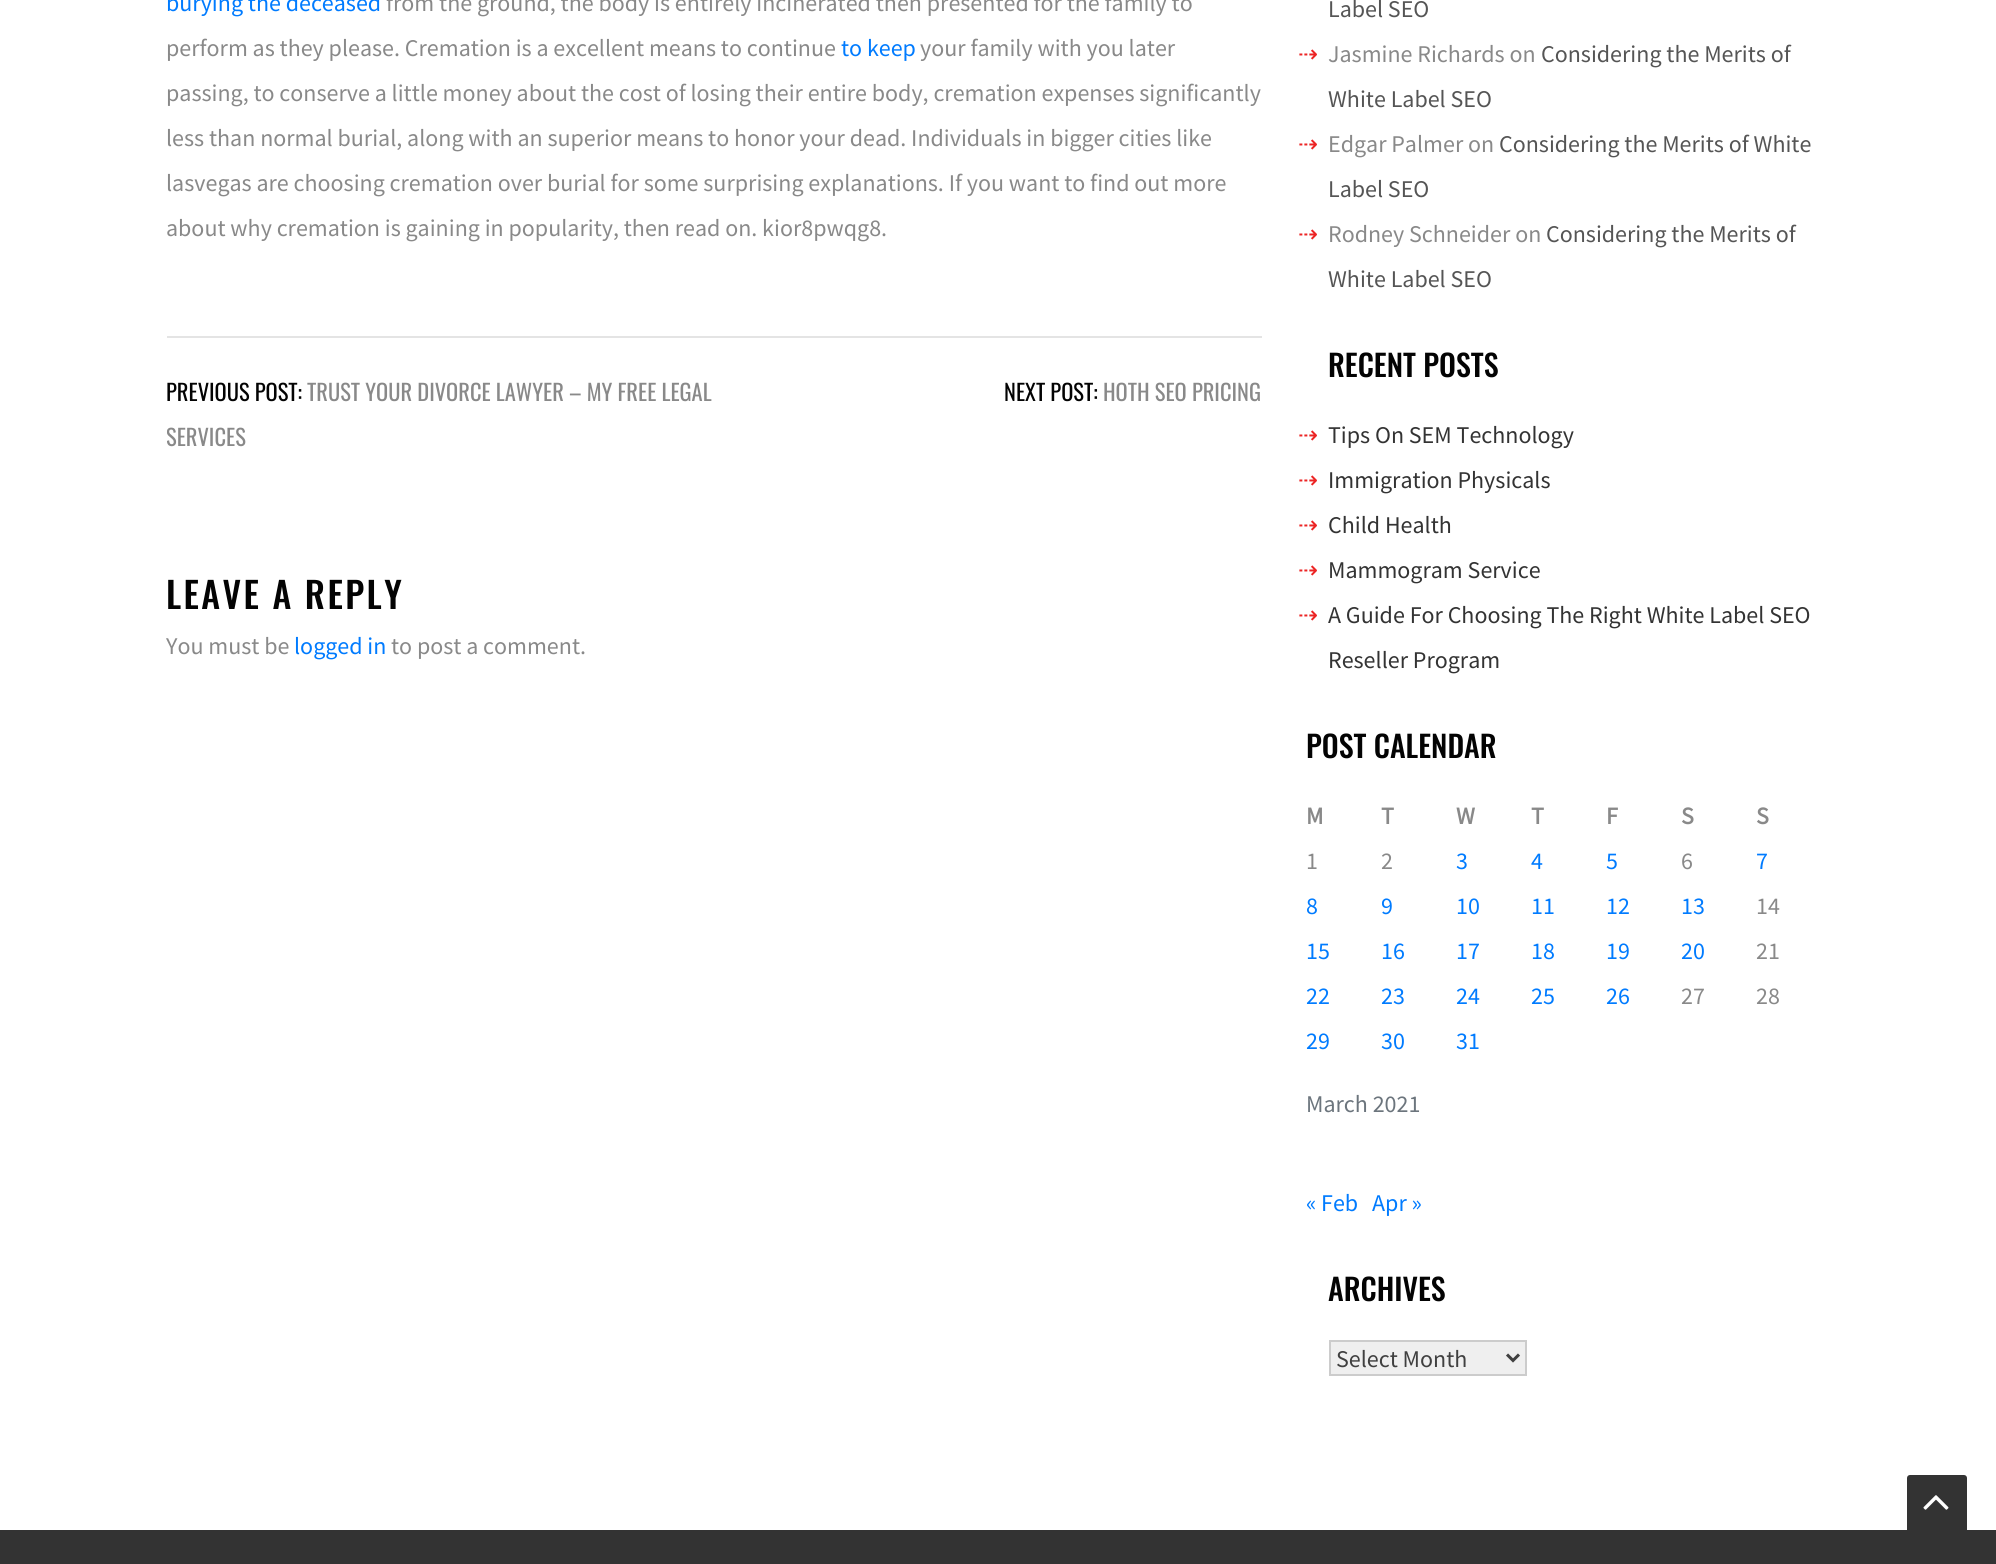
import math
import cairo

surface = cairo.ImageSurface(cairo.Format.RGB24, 1996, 1564)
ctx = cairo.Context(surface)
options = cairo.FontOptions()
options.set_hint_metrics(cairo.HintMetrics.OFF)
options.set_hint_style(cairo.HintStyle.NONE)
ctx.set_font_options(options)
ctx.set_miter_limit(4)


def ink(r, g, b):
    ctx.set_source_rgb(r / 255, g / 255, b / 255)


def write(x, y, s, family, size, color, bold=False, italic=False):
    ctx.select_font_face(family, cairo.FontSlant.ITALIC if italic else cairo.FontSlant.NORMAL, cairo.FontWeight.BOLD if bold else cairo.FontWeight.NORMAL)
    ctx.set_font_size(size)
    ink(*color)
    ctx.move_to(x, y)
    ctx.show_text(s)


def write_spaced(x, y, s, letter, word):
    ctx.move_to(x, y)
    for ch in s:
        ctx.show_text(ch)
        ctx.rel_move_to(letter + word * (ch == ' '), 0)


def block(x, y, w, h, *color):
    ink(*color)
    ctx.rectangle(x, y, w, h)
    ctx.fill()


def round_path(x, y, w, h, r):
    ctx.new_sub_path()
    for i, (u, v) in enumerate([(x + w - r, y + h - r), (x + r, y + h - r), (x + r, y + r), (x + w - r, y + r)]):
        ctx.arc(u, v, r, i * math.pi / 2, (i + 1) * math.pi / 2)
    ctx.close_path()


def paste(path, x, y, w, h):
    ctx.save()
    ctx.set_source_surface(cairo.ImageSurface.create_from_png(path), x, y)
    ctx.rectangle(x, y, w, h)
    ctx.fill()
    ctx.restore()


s1 = dict(family="Source Sans Pro", size=24, color=(0, 123, 255))
s2 = dict(family="Source Sans Pro", size=24, color=(137, 137, 137))
s3 = dict(family="Oswald", size=22.5, color=(3, 3, 3))
s4 = dict(family="Oswald", size=22.5, color=(137, 137, 137))
s5 = dict(family="Source Sans Pro", size=24, color=(85, 85, 85))
s6 = dict(family="DejaVu Sans", size=24, color=(236, 37, 37))
s7 = dict(family="Oswald Medium", size=30, color=(3, 3, 3))
s8 = dict(family="Source Sans Pro", size=24, color=(51, 51, 51))
s9 = dict(family="Source Sans Pro", size=24, color=(137, 137, 137), bold=True)
s10 = dict(family="Source Sans Pro", size=24, color=(108, 117, 125))
s11 = dict(family="Source Sans Pro", size=24, color=(64, 64, 64))

ink(255, 255, 255)
ctx.paint()
write(166, 11, "burying the deceased", **s1)
write(386, 11, "from the ground, the body is entirely incinerated then presented for the family to", **s2)
write(166, 56, "perform as they please. Cremation is a excellent means to continue", **s2)
write(841, 56, "to keep", **s1)
write(920, 56, "your family with you later", **s2)
write(166, 101, "passing, to conserve a little money about the cost of losing their entire body, cremation expenses significantly", **s2)
write(166, 146, "less than normal burial, along with an superior means to honor your dead. Individuals in bigger cities like", **s2)
write(166, 191, "lasvegas are choosing cremation over burial for some surprising explanations. If you want to find out more", **s2)
write(166, 236, "about why cremation is gaining in popularity, then read on. kior8pwqg8.", **s2)
block(167, 336, 1095, 2, 228, 228, 228)
write(166, 401, "PREVIOUS POST:", **s3)
write(307, 401, "TRUST YOUR DIVORCE LAWYER – MY FREE LEGAL", **s4)
ctx.save()
ctx.rectangle(167, 338, 1095, 120)
ctx.clip()
write(166, 446, "SERVICES", **s4)
ctx.restore()
write(1004, 401, "NEXT POST:", **s3)
write(1103, 401, "HOTH SEO PRICING", **s4)
ctx.select_font_face("Oswald Medium")
ctx.set_font_size(36)
ink(3, 3, 3)
write_spaced(166, 609, "LEAVE A REPLY", 2.4, 0)
write(166, 654, "You must be", **s2)
write(294, 654, "logged in", **s1)
write(391, 654, "to post a comment.", **s2)
write(1328, 17, "Label SEO", **s5)
write(1298, 62, "⇢", **s6)
write(1328, 62, "Jasmine Richards on", **s2)
write(1541, 62, "Considering the Merits of", **s5)
write(1328, 107, "White Label SEO", **s5)
write(1298, 152, "⇢", **s6)
write(1328, 152, "Edgar Palmer on", **s2)
write(1499, 152, "Considering the Merits of White", **s5)
write(1328, 197, "Label SEO", **s5)
write(1298, 242, "⇢", **s6)
write(1328, 242, "Rodney Schneider on", **s2)
write(1546, 242, "Considering the Merits of", **s5)
write(1328, 287, "White Label SEO", **s5)
write(1328, 377, "RECENT POSTS", **s7)
write(1298, 443, "⇢", **s6)
write(1328, 443, "Tips On SEM Technology", **s8)
write(1298, 488, "⇢", **s6)
write(1328, 488, "Immigration Physicals", **s8)
write(1298, 533, "⇢", **s6)
write(1328, 533, "Child Health", **s8)
write(1298, 578, "⇢", **s6)
write(1328, 578, "Mammogram Service", **s8)
write(1298, 623, "⇢", **s6)
write(1328, 623, "A Guide For Choosing The Right White Label SEO", **s8)
write(1328, 668, "Reseller Program", **s8)
write(1306, 758, "POST CALENDAR", **s7)
write(1306, 824, "M", **s9)
write(1381, 824, "T", **s9)
write(1456, 824, "W", **s9)
write(1531, 824, "T", **s9)
write(1606, 824, "F", **s9)
write(1681, 824, "S", **s9)
write(1756, 824, "S", **s9)
write(1306, 869, "1", **s2)
write(1381, 869, "2", **s2)
write(1456, 869, "3", **s1)
write(1531, 869, "4", **s1)
write(1606, 869, "5", **s1)
write(1681, 869, "6", **s2)
write(1756, 869, "7", **s1)
write(1306, 914, "8", **s1)
write(1381, 914, "9", **s1)
write(1456, 914, "10", **s1)
write(1531, 914, "11", **s1)
write(1606, 914, "12", **s1)
write(1681, 914, "13", **s1)
write(1756, 914, "14", **s2)
write(1306, 959, "15", **s1)
write(1381, 959, "16", **s1)
write(1456, 959, "17", **s1)
write(1531, 959, "18", **s1)
write(1606, 959, "19", **s1)
write(1681, 959, "20", **s1)
write(1756, 959, "21", **s2)
write(1306, 1004, "22", **s1)
write(1381, 1004, "23", **s1)
write(1456, 1004, "24", **s1)
write(1531, 1004, "25", **s1)
write(1606, 1004, "26", **s1)
write(1681, 1004, "27", **s2)
write(1756, 1004, "28", **s2)
write(1306, 1049, "29", **s1)
write(1381, 1049, "30", **s1)
write(1456, 1049, "31", **s1)
write(1306, 1112, "March 2021", **s10)
write(1306, 1211, "« Feb", **s1)
write(1372, 1211, "Apr »", **s1)
write(1328, 1301, "ARCHIVES", **s7)
ink(239, 239, 239)
ctx.rectangle(1330, 1341, 196, 34)
ctx.fill_preserve()
ink(204, 204, 204)
ctx.stroke()
ctx.new_path()
ctx.move_to(1507, 1354.5)
ctx.line_to(1513, 1360.5)
ctx.line_to(1519, 1354.5)
ink(64, 64, 64)
ctx.set_line_width(3)
ctx.stroke()
write(1336, 1367, "Select Month", **s11)
block(0, 1530, 1996, 34, 51, 51, 51)
round_path(1907, 1475, 60, 60, 3)
ctx.fill()
paste("pic1.png", 1923, 1495, 26, 15)
surface.write_to_png("screenshot.png")
